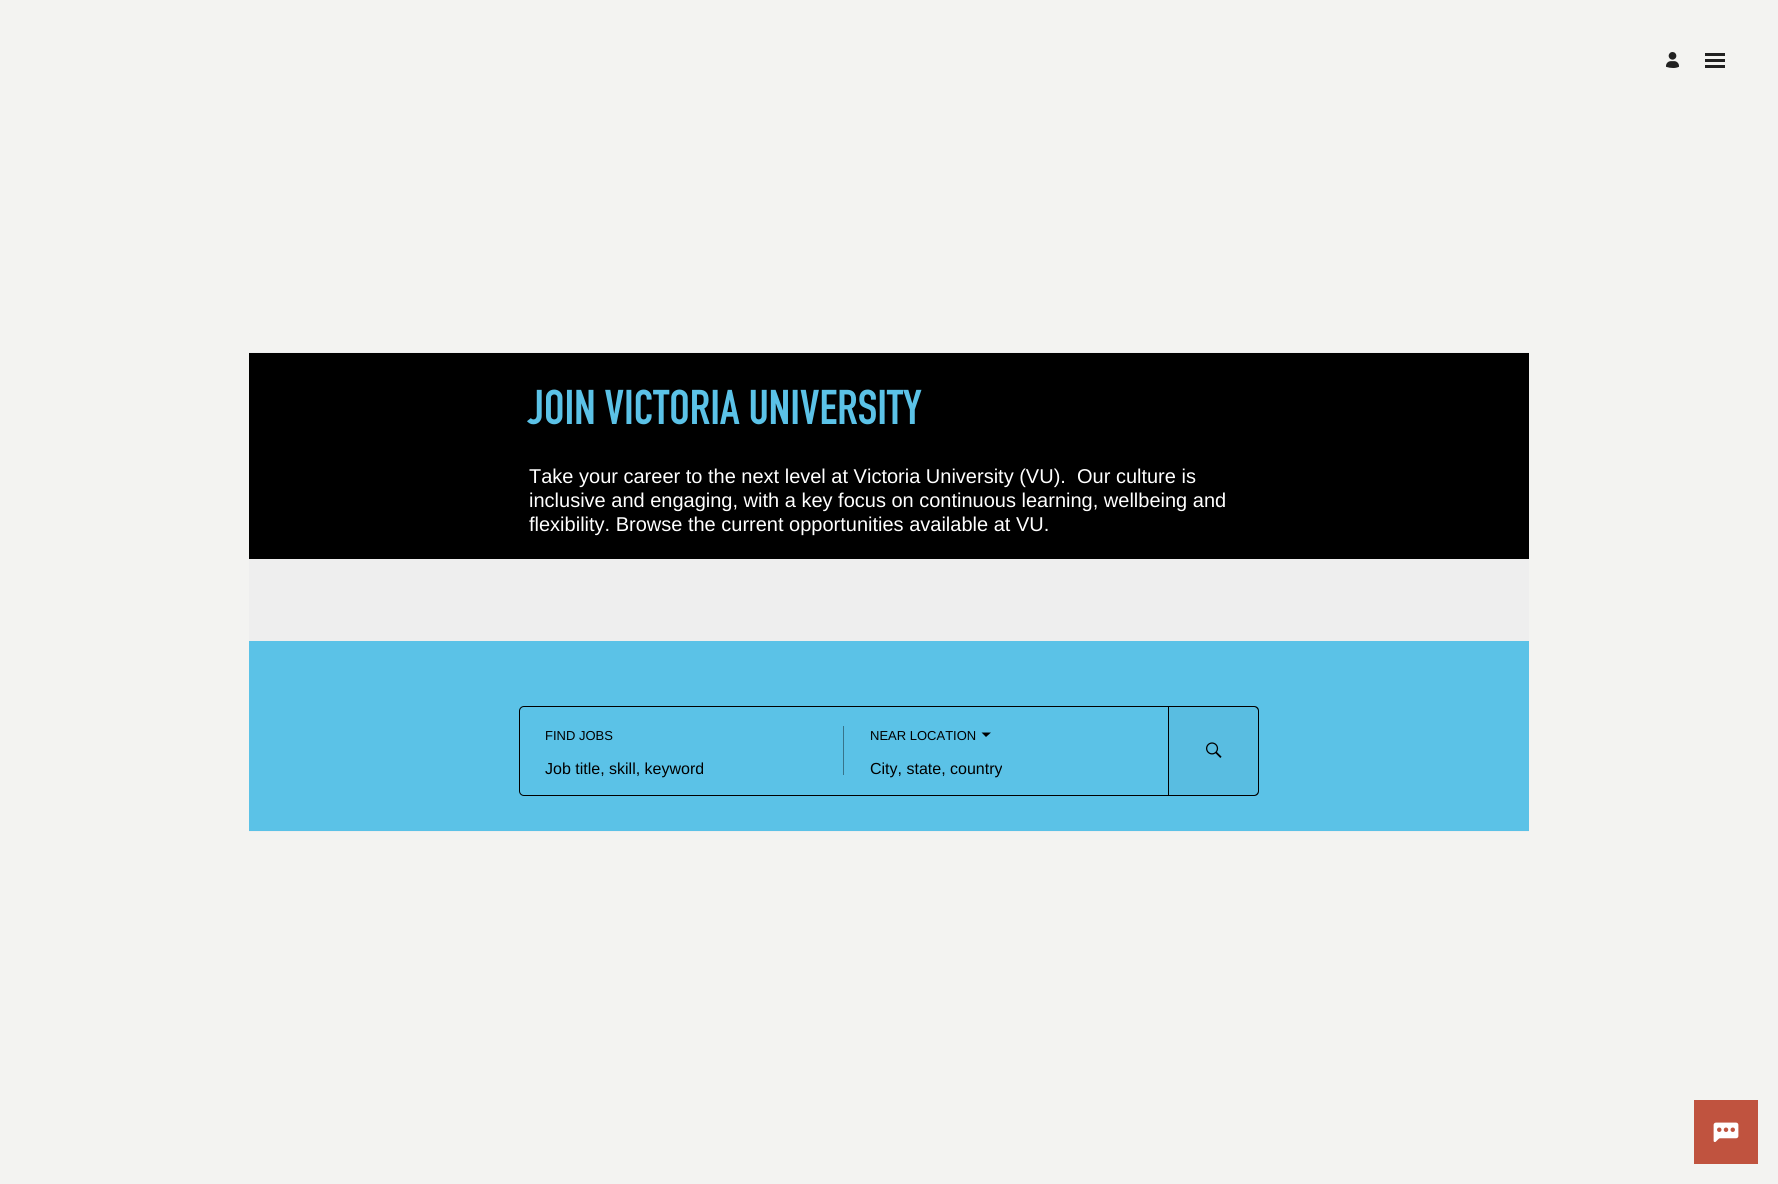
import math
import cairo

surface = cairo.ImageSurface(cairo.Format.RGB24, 1778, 1184)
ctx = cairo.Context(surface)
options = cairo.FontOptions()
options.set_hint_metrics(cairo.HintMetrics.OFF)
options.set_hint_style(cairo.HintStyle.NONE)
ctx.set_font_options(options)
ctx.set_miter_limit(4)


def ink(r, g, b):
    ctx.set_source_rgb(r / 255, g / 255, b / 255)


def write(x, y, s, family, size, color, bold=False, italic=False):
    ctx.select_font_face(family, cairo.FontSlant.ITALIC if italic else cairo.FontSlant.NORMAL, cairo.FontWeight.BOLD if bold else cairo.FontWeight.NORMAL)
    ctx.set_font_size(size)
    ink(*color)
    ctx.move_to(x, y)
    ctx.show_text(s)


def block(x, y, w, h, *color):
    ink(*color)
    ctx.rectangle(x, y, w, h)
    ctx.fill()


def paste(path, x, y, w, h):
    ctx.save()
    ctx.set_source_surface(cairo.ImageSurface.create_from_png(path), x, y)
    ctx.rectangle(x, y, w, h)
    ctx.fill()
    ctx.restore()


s1 = dict(family="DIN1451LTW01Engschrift", size=48, color=(91, 194, 231))
s2 = dict(family="Liberation Sans", size=20, color=(255, 255, 255))
s3 = dict(family="Liberation Sans", size=13, color=(0, 0, 0))
s4 = dict(family="Liberation Sans", size=16, color=(0, 0, 0))

ink(243, 243, 241)
ctx.paint()
paste("pic1.png", 1666, 52, 13, 16)
block(1705, 53, 20, 3, 33, 33, 33)
block(1705, 59, 20, 3, 33, 33, 33)
block(1705, 65, 20, 3, 33, 33, 33)
block(249, 352, 1280, 480, 238, 238, 238)
block(249, 353, 1280, 206, 0, 0, 0)
write(528, 424, "JOIN VICTORIA UNIVERSITY", **s1)
write(529, 483, "Take your career to the next level at Victoria University (VU).  Our culture is", **s2)
write(529, 507, "inclusive and engaging, with a key focus on continuous learning, wellbeing and", **s2)
write(529, 531, "flexibility. Browse the current opportunities available at VU.", **s2)
block(249, 641, 1280, 190, 91, 194, 231)
ctx.new_path()
ctx.move_to(524, 706.5)
ctx.line_to(1168.5, 706.5)
ctx.line_to(1168.5, 795.5)
ctx.line_to(524, 795.5)
ctx.curve_to(521.5, 795.5, 519.5, 793.5, 519.5, 791)
ctx.line_to(519.5, 711)
ctx.curve_to(519.5, 708.5, 521.5, 706.5, 524, 706.5)
ctx.close_path()
ink(0, 0, 0)
ctx.set_line_width(1)
ctx.stroke()
write(545, 740, "FIND JOBS", **s3)
write(545, 774, "Job title, skill, keyword", **s4)
block(843, 726, 1, 49, 55, 116, 139)
write(870, 740, "NEAR LOCATION", **s3)
ctx.new_path()
ctx.move_to(986, 737)
ctx.line_to(981.5, 732.5)
ctx.line_to(991, 732.5)
ctx.close_path()
ctx.fill()
write(870, 774, "City, state, country", **s4)
ink(89, 189, 225)
ctx.new_path()
ctx.move_to(1169, 706)
ctx.line_to(1254, 706)
ctx.curve_to(1257, 706, 1259, 708, 1259, 711)
ctx.line_to(1259, 791)
ctx.curve_to(1259, 794, 1257, 796, 1254, 796)
ctx.line_to(1169, 796)
ctx.close_path()
ctx.fill()
ink(0, 0, 0)
ctx.set_fill_rule(cairo.FillRule.EVEN_ODD)
ctx.new_path()
ctx.move_to(1169, 706)
ctx.line_to(1254, 706)
ctx.curve_to(1257, 706, 1259, 708, 1259, 711)
ctx.line_to(1259, 791)
ctx.curve_to(1259, 794, 1257, 796, 1254, 796)
ctx.line_to(1169, 796)
ctx.close_path()
ctx.move_to(1169, 707)
ctx.line_to(1254, 707)
ctx.curve_to(1256, 707, 1258, 709, 1258, 711)
ctx.line_to(1258, 791)
ctx.curve_to(1258, 793, 1256, 795, 1254, 795)
ctx.line_to(1169, 795)
ctx.close_path()
ctx.fill()
paste("pic2.png", 1206, 742, 16, 16)
block(1694, 1100, 64, 64, 192, 83, 63)
paste("pic3.png", 1713, 1122, 26, 20)
surface.write_to_png("screenshot.png")
